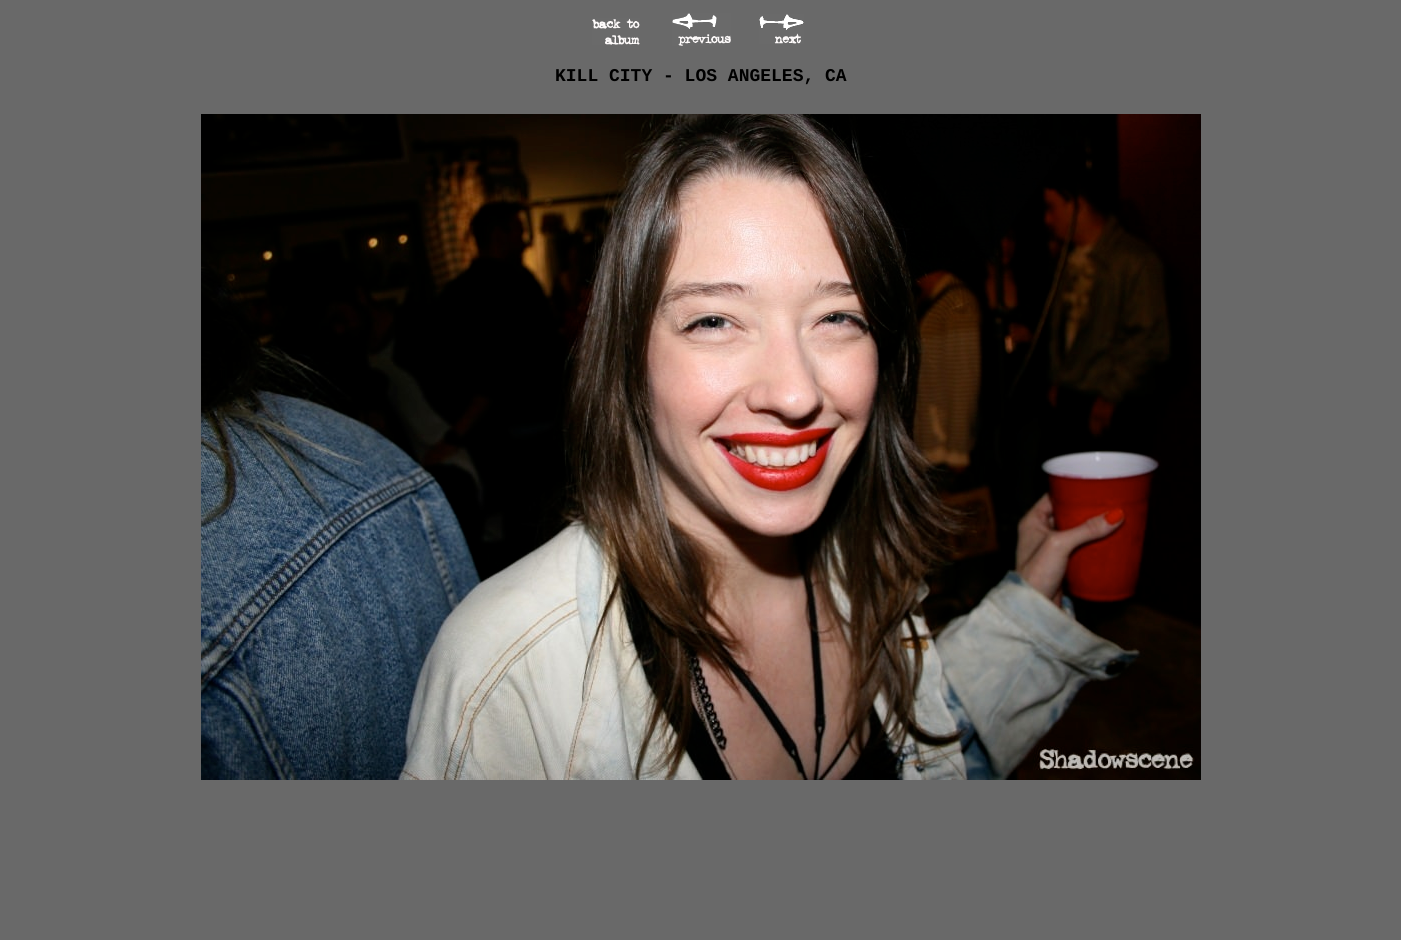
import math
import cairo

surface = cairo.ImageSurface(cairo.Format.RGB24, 1401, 940)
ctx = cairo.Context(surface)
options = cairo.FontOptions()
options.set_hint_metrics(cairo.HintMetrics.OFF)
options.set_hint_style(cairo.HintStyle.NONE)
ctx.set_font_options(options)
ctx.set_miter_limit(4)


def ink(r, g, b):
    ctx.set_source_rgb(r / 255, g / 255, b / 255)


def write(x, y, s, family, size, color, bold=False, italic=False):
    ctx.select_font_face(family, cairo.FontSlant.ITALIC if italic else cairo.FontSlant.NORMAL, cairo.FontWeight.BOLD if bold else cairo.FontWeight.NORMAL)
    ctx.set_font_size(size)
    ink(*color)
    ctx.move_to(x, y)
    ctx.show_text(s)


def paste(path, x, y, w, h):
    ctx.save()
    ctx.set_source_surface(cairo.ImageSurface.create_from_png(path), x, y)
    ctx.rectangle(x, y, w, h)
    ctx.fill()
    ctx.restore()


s1 = dict(family="Liberation Mono", size=18, color=(0, 0, 0), bold=True)

ink(105, 105, 105)
ctx.paint()
paste("pic1.png", 592, 18, 48, 27)
paste("pic2.png", 672, 13, 59, 33)
paste("pic3.png", 759, 14, 45, 30)
write(555, 81, "KILL CITY - LOS ANGELES, CA", **s1)
paste("pic4.png", 201, 114, 1000, 666)
surface.write_to_png("screenshot.png")
